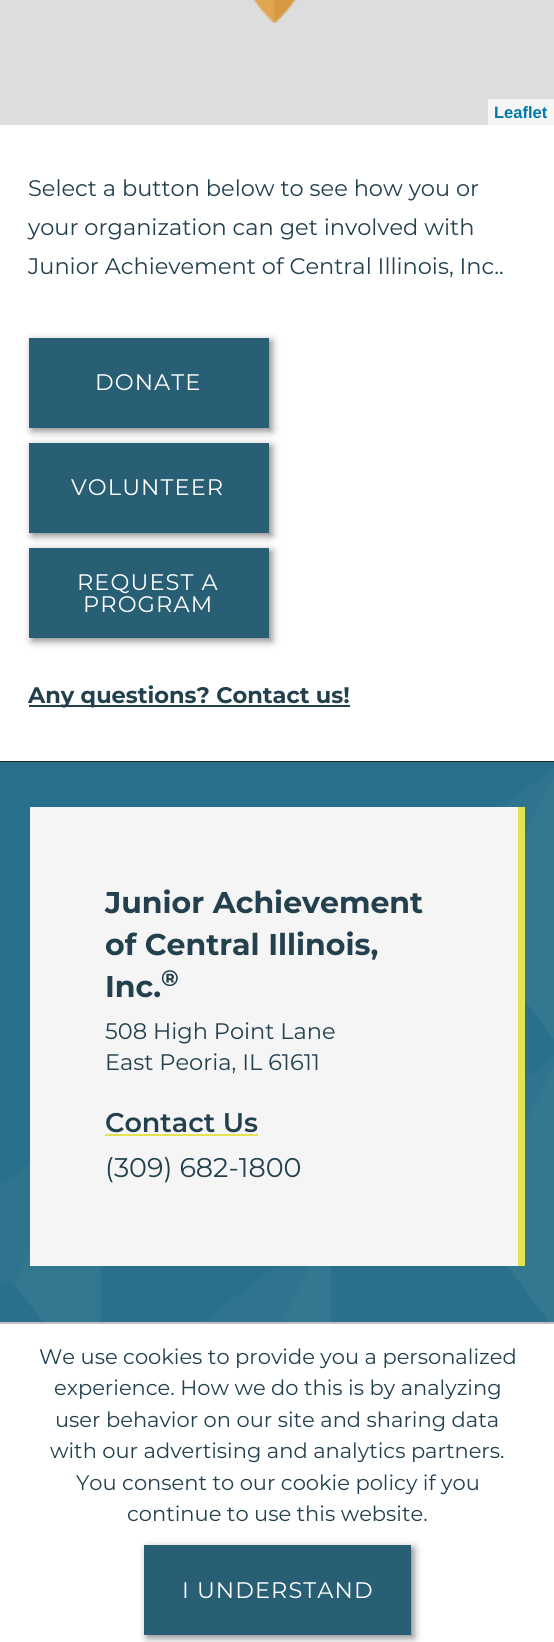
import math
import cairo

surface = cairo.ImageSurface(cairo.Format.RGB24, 554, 1642)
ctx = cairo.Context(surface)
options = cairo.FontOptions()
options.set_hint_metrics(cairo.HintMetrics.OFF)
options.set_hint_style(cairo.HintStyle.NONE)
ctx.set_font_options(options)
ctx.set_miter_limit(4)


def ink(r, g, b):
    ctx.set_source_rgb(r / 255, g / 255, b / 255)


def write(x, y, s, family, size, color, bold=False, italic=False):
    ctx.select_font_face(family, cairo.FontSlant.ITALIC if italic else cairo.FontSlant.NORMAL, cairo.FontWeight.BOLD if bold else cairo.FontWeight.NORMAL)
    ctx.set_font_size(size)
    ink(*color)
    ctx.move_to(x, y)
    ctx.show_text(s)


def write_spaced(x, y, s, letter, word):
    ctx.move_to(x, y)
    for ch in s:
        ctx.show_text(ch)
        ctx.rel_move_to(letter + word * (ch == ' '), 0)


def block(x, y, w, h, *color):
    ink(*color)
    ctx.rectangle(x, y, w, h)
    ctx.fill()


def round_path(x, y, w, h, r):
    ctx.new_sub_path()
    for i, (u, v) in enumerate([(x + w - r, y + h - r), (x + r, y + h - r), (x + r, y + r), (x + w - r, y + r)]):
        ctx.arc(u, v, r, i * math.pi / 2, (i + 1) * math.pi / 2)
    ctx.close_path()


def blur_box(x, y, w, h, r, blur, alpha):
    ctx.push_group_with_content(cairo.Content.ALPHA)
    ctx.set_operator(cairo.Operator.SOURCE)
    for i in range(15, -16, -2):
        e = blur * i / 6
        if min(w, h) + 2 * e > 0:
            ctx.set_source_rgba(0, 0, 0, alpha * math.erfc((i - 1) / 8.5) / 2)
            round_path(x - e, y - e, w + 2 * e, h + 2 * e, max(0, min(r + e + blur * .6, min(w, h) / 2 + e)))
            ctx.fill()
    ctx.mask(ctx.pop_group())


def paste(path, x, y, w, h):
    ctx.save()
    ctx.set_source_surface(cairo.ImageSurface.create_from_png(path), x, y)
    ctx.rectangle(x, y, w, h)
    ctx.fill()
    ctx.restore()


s1 = dict(family="Liberation Sans", size=16.5, color=(0, 120, 168), bold=True)
s2 = dict(family="Montserrat", size=22.5, color=(34, 64, 77))
s3 = dict(family="Montserrat", size=22.5, color=(34, 64, 77), bold=True)
s4 = dict(family="Montserrat", size=30, color=(34, 64, 77), bold=True)
s5 = dict(family="Montserrat SemiBold", size=27, color=(34, 64, 77))
s6 = dict(family="Montserrat", size=27, color=(34, 64, 77))
s7 = dict(family="Montserrat", size=21, color=(34, 64, 77))

ink(255, 255, 255)
ctx.paint()
block(0, 761, 554, 1, 34, 34, 34)
block(0, 0, 554, 125, 221, 221, 221)
paste("pic1.png", 252, 0, 45, 23)
block(488, 99, 66, 26, 245, 245, 245)
write(494, 118, "Leaflet", **s1)
write(28, 196, "Select a button below to see how you or", **s2)
write(28, 235, "your organization can get involved with", **s2)
write(28, 274, "Junior Achievement of Central Illinois, Inc..", **s2)
ink(136, 136, 136)
blur_box(32, 341, 240, 90, 0, 4, 1)
block(29, 338, 240, 90, 40, 95, 116)
ink(255, 255, 255)
write_spaced(95, 390, "DONATE", 1.1, 0)
ink(136, 136, 136)
blur_box(32, 446, 240, 90, 0, 4, 1)
block(29, 443, 240, 90, 40, 95, 116)
ink(255, 255, 255)
write_spaced(71, 495, "VOLUNTEER", 1.1, 0)
ink(136, 136, 136)
blur_box(32, 551, 240, 90, 0, 4, 1)
block(29, 548, 240, 90, 40, 95, 116)
ink(255, 255, 255)
write_spaced(77, 590, "REQUEST A", 1.1, 0)
write_spaced(83, 612, "PROGRAM", 1.1, 0)
block(29, 705, 321, 2, 34, 64, 77)
write(28, 703, "Any questions? Contact us!", **s3)
block(0, 762, 554, 560, 40, 112, 139)
paste("pic2.png", 0, 768, 554, 554)
block(30, 807, 488, 459, 245, 245, 245)
block(518, 807, 7, 459, 227, 226, 79)
write(105, 913, "Junior Achievement", **s4)
write(105, 955, "of Central Illinois,", **s4)
write(105, 997, "Inc.", **s4)
write(161, 986, "®", **s3)
write(105, 1039, "508 High Point Lane", **s2)
write(105, 1070, "East Peoria, IL 61611", **s2)
write(105, 1132, "Contact Us", **s5)
block(105, 1134, 153, 2, 227, 226, 79)
write(105, 1177, "(309) 682-1800", **s6)
block(0, 1322, 554, 2, 192, 192, 192)
write(39, 1364, "We use cookies to provide you a personalized", **s7)
write(54, 1395, "experience. How we do this is by analyzing", **s7)
write(55, 1427, "user behavior on our site and sharing data", **s7)
write(50, 1458, "with our advertising and analytics partners.", **s7)
write(76, 1490, "You consent to our cookie policy if you", **s7)
write(127, 1521, "continue to use this website.", **s7)
ink(136, 136, 136)
blur_box(147, 1548, 267, 90, 0, 4, 1)
block(144, 1545, 267, 90, 40, 95, 116)
ctx.set_font_size(22.5)
ink(255, 255, 255)
write_spaced(182, 1598, "I UNDERSTAND", 1.1, 0)
surface.write_to_png("screenshot.png")
